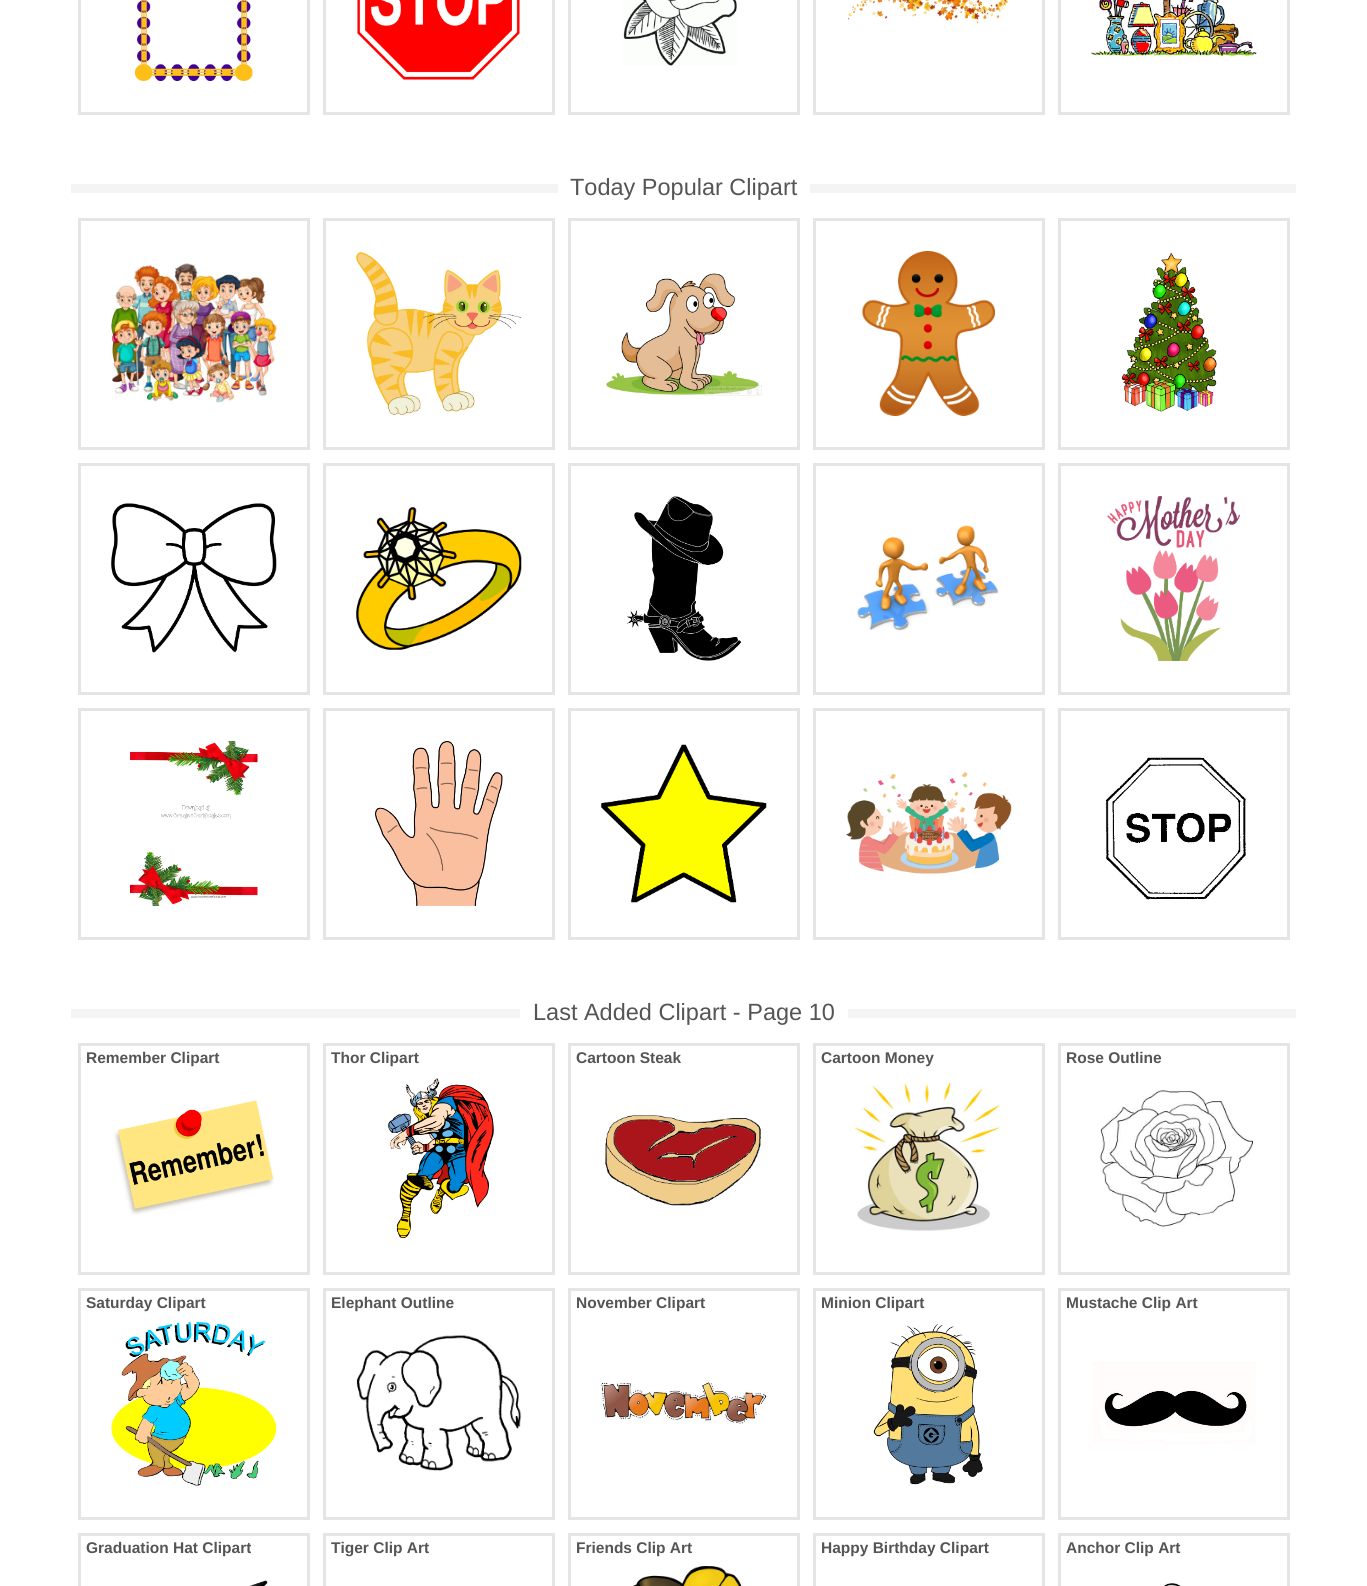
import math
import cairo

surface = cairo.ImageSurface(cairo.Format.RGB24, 1367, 1586)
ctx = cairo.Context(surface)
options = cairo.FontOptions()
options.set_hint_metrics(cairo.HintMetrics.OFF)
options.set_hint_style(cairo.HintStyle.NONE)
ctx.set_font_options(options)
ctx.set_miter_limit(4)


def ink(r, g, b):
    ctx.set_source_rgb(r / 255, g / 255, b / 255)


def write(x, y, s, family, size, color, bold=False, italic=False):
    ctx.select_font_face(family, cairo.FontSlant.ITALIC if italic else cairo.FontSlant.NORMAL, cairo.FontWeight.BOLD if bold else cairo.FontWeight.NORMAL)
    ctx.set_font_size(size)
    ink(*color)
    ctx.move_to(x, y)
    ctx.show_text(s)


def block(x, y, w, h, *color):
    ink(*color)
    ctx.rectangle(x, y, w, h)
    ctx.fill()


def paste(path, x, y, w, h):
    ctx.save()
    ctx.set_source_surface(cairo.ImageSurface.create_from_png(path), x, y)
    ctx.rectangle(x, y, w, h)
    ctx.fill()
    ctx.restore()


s1 = dict(family="Liberation Sans", size=23.5, color=(85, 85, 85))
s2 = dict(family="Liberation Sans", size=15.5, color=(85, 85, 85), bold=True)

ink(255, 255, 255)
ctx.paint()
ctx.rectangle(79.5, -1.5, 229, 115)
ink(229, 229, 229)
ctx.set_line_width(3)
ctx.stroke()
paste("pic1.png", 135, 0, 118, 81)
ctx.rectangle(324.5, -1.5, 229, 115)
ctx.stroke()
paste("pic2.png", 357, 0, 163, 80)
ctx.rectangle(569.5, -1.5, 229, 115)
ctx.stroke()
paste("pic3.png", 622, 0, 116, 66)
ctx.rectangle(814.5, -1.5, 229, 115)
ctx.stroke()
paste("pic4.png", 847, 0, 162, 24)
ctx.rectangle(1059.5, -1.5, 229, 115)
ctx.stroke()
paste("pic5.png", 1091, 0, 166, 56)
block(71, 184, 1225, 9, 244, 244, 244)
block(558, 184, 252, 9, 255, 255, 255)
write(570, 195, "Today Popular Clipart", **s1)
ctx.rectangle(79.5, 219.5, 229, 229)
ink(229, 229, 229)
ctx.stroke()
paste("pic6.png", 111, 263, 166, 140)
ctx.rectangle(324.5, 219.5, 229, 229)
ctx.stroke()
paste("pic7.png", 356, 252, 166, 163)
ctx.rectangle(569.5, 219.5, 229, 229)
ctx.stroke()
paste("pic8.png", 606, 273, 156, 123)
ctx.rectangle(814.5, 219.5, 229, 229)
ctx.stroke()
paste("pic9.png", 862, 251, 133, 165)
ctx.rectangle(1059.5, 219.5, 229, 229)
ctx.stroke()
paste("pic10.png", 1121, 253, 96, 159)
ctx.rectangle(79.5, 464.5, 229, 229)
ctx.stroke()
paste("pic11.png", 111, 503, 166, 150)
ctx.rectangle(324.5, 464.5, 229, 229)
ctx.stroke()
paste("pic12.png", 356, 507, 166, 143)
ctx.rectangle(569.5, 464.5, 229, 229)
ctx.stroke()
paste("pic13.png", 627, 496, 115, 165)
ctx.rectangle(814.5, 464.5, 229, 229)
ctx.stroke()
paste("pic14.png", 857, 525, 142, 106)
ctx.rectangle(1059.5, 464.5, 229, 229)
ctx.stroke()
paste("pic15.png", 1107, 496, 133, 165)
ctx.rectangle(79.5, 709.5, 229, 229)
ctx.stroke()
paste("pic16.png", 130, 741, 128, 165)
ctx.rectangle(324.5, 709.5, 229, 229)
ctx.stroke()
paste("pic17.png", 375, 741, 128, 165)
ctx.rectangle(569.5, 709.5, 229, 229)
ctx.stroke()
paste("pic18.png", 601, 744, 166, 159)
ctx.rectangle(814.5, 709.5, 229, 229)
ctx.stroke()
paste("pic19.png", 846, 772, 166, 102)
ctx.rectangle(1059.5, 709.5, 229, 229)
ctx.stroke()
paste("pic20.png", 1105, 757, 141, 143)
block(71, 1009, 1225, 9, 244, 244, 244)
block(520, 1009, 328, 9, 255, 255, 255)
write(533, 1020, "Last Added Clipart - Page 10", **s1)
ctx.rectangle(79.5, 1044.5, 229, 229)
ink(229, 229, 229)
ctx.stroke()
write(86, 1063, "Remember Clipart", **s2)
paste("pic21.png", 114, 1100, 160, 115)
ctx.rectangle(324.5, 1044.5, 229, 229)
ink(229, 229, 229)
ctx.stroke()
write(331, 1063, "Thor Clipart", **s2)
paste("pic22.png", 388, 1078, 106, 160)
ctx.rectangle(569.5, 1044.5, 229, 229)
ink(229, 229, 229)
ctx.stroke()
write(576, 1063, "Cartoon Steak", **s2)
paste("pic23.png", 605, 1115, 156, 91)
ctx.rectangle(814.5, 1044.5, 229, 229)
ink(229, 229, 229)
ctx.stroke()
write(821, 1063, "Cartoon Money", **s2)
paste("pic24.png", 854, 1082, 147, 149)
ctx.rectangle(1059.5, 1044.5, 229, 229)
ink(229, 229, 229)
ctx.stroke()
write(1066, 1063, "Rose Outline", **s2)
paste("pic25.png", 1099, 1090, 154, 137)
ctx.rectangle(79.5, 1289.5, 229, 229)
ink(229, 229, 229)
ctx.stroke()
write(86, 1308, "Saturday Clipart", **s2)
paste("pic26.png", 111, 1322, 166, 164)
ctx.rectangle(324.5, 1289.5, 229, 229)
ink(229, 229, 229)
ctx.stroke()
write(331, 1308, "Elephant Outline", **s2)
paste("pic27.png", 356, 1334, 166, 137)
ctx.rectangle(569.5, 1289.5, 229, 229)
ink(229, 229, 229)
ctx.stroke()
write(576, 1308, "November Clipart", **s2)
paste("pic28.png", 601, 1382, 166, 42)
ctx.rectangle(814.5, 1289.5, 229, 229)
ink(229, 229, 229)
ctx.stroke()
write(821, 1308, "Minion Clipart", **s2)
paste("pic29.png", 873, 1324, 110, 161)
ctx.rectangle(1059.5, 1289.5, 229, 229)
ink(229, 229, 229)
ctx.stroke()
write(1066, 1308, "Mustache Clip Art", **s2)
paste("pic30.png", 1092, 1362, 164, 82)
ctx.rectangle(79.5, 1534.5, 229, 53)
ink(229, 229, 229)
ctx.stroke()
write(86, 1553, "Graduation Hat Clipart", **s2)
paste("pic31.png", 249, 1580, 19, 6)
ctx.rectangle(324.5, 1534.5, 229, 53)
ink(229, 229, 229)
ctx.stroke()
write(331, 1553, "Tiger Clip Art", **s2)
ctx.rectangle(569.5, 1534.5, 229, 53)
ink(229, 229, 229)
ctx.stroke()
write(576, 1553, "Friends Clip Art", **s2)
paste("pic32.png", 633, 1566, 109, 20)
ctx.rectangle(814.5, 1534.5, 229, 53)
ink(229, 229, 229)
ctx.stroke()
write(821, 1553, "Happy Birthday Clipart", **s2)
ctx.rectangle(1059.5, 1534.5, 229, 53)
ink(229, 229, 229)
ctx.stroke()
write(1066, 1553, "Anchor Clip Art", **s2)
paste("pic33.png", 1164, 1583, 17, 3)
surface.write_to_png("screenshot.png")
